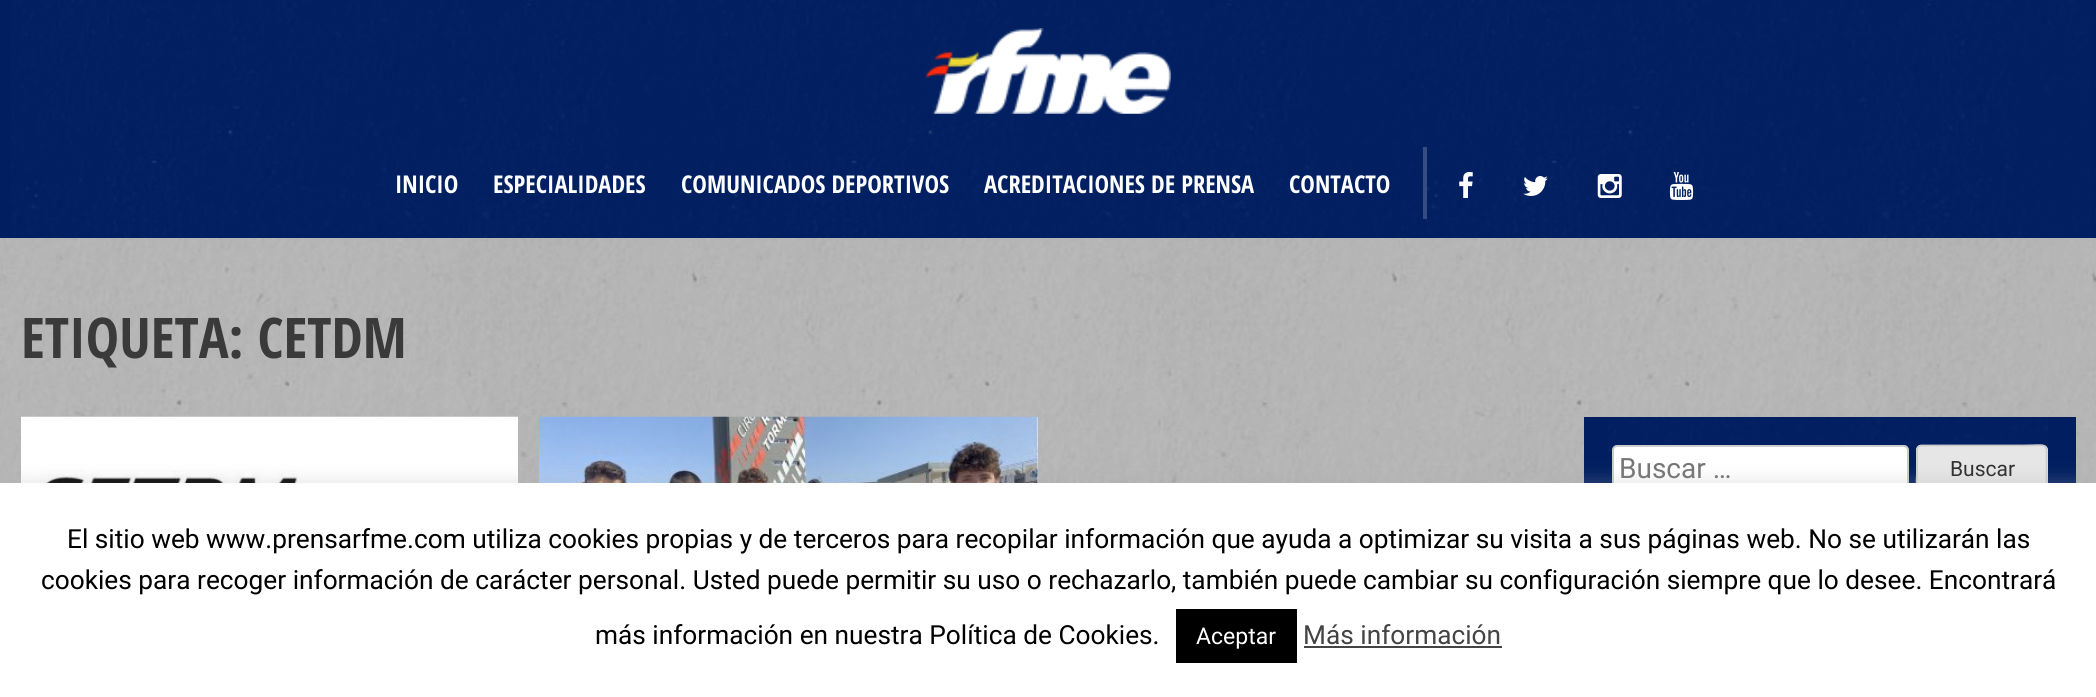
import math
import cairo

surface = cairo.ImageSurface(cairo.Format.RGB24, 2096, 697)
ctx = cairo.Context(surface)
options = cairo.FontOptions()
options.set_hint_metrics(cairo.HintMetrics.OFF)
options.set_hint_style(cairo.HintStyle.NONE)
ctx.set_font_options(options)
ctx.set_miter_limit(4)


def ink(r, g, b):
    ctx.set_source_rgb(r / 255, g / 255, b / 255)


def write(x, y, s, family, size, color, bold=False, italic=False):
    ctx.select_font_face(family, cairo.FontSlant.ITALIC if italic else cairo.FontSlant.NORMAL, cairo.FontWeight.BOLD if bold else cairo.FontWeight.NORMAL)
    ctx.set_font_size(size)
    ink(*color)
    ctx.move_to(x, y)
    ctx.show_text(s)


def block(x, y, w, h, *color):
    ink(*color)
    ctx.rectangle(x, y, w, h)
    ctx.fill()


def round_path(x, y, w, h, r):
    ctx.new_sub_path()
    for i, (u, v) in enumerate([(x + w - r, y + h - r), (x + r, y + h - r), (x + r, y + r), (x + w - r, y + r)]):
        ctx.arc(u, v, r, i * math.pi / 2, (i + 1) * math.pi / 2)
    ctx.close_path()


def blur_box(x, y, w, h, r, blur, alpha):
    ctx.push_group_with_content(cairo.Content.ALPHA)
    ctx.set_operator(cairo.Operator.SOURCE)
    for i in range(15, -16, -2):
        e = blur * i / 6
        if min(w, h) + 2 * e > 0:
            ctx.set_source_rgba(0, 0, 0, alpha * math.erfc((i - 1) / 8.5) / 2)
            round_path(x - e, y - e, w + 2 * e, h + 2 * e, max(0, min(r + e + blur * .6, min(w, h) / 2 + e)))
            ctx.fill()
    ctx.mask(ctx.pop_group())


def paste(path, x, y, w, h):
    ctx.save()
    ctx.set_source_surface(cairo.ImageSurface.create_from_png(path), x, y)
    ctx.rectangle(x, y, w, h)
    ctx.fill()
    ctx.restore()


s1 = dict(family="Open Sans Condensed", size=24.5, color=(255, 255, 255), bold=True)
s2 = dict(family="Open Sans Condensed", size=56, color=(58, 58, 58), bold=True)
s3 = dict(family="Roboto", size=28, color=(117, 117, 117))
s4 = dict(family="Roboto", size=21, color=(46, 46, 46))
s5 = dict(family="Roboto", size=26.25, color=(0, 0, 0))
s6 = dict(family="Roboto", size=23, color=(255, 255, 255))
s7 = dict(family="Roboto", size=26.25, color=(68, 68, 68))

ink(185, 185, 185)
ctx.paint()
paste("pic1.png", 0, 238, 2096, 245)
block(0, 0, 2096, 238, 0, 30, 96)
paste("pic2.png", 11, 0, 2080, 238)
paste("pic3.png", 925, 28, 246, 86)
write(395, 193, "INICIO", **s1)
write(493, 193, "ESPECIALIDADES", **s1)
write(681, 193, "COMUNICADOS DEPORTIVOS", **s1)
write(984, 193, "ACREDITACIONES DE PRENSA", **s1)
write(1289, 193, "CONTACTO", **s1)
ctx.set_source_rgba(1, 1, 1, 0.2)
ctx.rectangle(1423, 147, 4, 72)
ctx.fill()
paste("pic4.png", 1459, 172, 14, 26)
paste("pic5.png", 1523, 176, 25, 20)
paste("pic6.png", 1597, 174, 25, 24)
paste("pic7.png", 1669, 172, 25, 28)
write(21, 358, "ETIQUETA: CETDM", **s2)
paste("pic8.png", 21, 416, 497, 67)
block(1037, 417, 1, 66, 255, 255, 255)
paste("pic9.png", 539, 416, 499, 67)
block(1584, 417, 492, 66, 0, 30, 96)
paste("pic10.png", 1608, 417, 440, 35)
ink(255, 255, 255)
round_path(1613, 446, 295, 45, 4)
ctx.fill_preserve()
ink(204, 204, 204)
ctx.stroke()
write(1619, 478, "Buscar …", **s3)
ink(230, 230, 230)
round_path(1916, 445, 132, 45, 5)
ctx.fill()
ctx.new_path()
ctx.move_to(1918.5, 488)
ctx.curve_to(1915.5, 485, 1917, 476, 1917, 473)
ctx.line_to(1917, 455.5)
ctx.curve_to(1917, 452, 1916, 445.5, 1921.5, 445.5)
ctx.line_to(2022, 445.5)
ctx.curve_to(2050.5, 445.5, 2046.5, 440.5, 2046.5, 467)
ctx.line_to(2046.5, 479)
ctx.curve_to(2046.5, 481.5, 2047.5, 485.5, 2045.5, 488)
ink(204, 204, 204)
ctx.set_line_width(1.8)
ctx.stroke()
write(1950, 476, "Buscar", **s4)
ink(172, 171, 171)
blur_box(0, 481, 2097, 216, 0, 9, 0.3)
block(0, 483, 2096, 214, 255, 255, 255)
write(67, 548, "El sitio web www.prensarfme.com utiliza cookies propias y de terceros para recopilar información que ayuda a optimizar su visita a sus páginas web. No se utilizarán las", **s5)
write(41, 589, "cookies para recoger información de carácter personal. Usted puede permitir su uso o rechazarlo, también puede cambiar su configuración siempre que lo desee. Encontrará", **s5)
write(595, 644, "más información en nuestra Política de Cookies.", **s5)
block(1176, 609, 121, 54, 0, 0, 0)
write(1196, 644, "Aceptar", **s6)
write(1303, 644, "Más información", **s7)
block(1304, 646, 198, 2, 68, 68, 68)
surface.write_to_png("screenshot.png")
